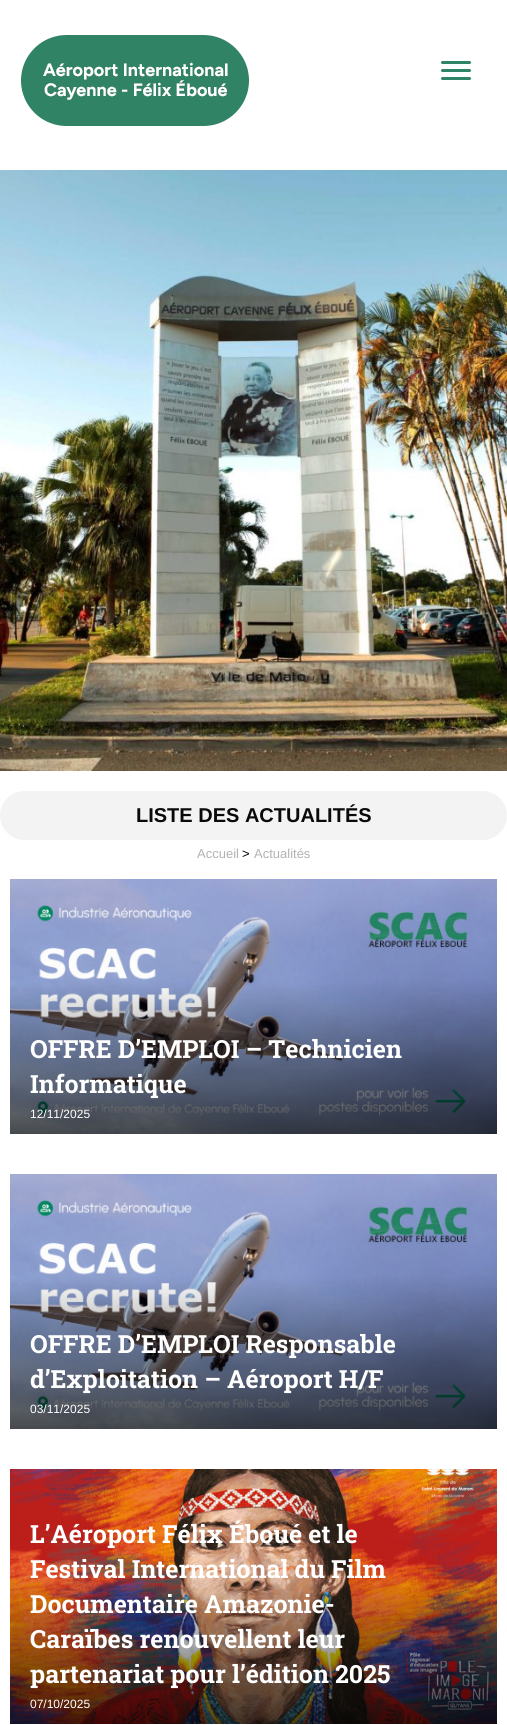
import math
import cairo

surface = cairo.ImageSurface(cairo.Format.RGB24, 507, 1725)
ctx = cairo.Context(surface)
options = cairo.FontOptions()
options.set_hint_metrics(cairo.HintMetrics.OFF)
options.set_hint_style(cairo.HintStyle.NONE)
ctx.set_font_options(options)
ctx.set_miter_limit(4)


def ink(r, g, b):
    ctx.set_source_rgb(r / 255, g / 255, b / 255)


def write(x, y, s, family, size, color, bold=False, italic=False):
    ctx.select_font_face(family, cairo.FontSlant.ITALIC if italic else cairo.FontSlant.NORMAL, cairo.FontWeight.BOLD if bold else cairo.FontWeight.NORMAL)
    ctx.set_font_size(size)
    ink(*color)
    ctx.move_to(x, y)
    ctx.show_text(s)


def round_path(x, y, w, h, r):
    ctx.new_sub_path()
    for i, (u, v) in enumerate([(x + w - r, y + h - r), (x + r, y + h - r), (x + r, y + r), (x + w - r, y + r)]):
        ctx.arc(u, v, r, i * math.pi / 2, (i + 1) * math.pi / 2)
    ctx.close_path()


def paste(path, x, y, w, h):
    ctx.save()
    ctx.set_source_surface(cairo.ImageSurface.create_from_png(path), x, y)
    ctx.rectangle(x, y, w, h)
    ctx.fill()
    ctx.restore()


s1 = dict(family="Liberation Sans", size=20, color=(10, 10, 10), bold=True)
s2 = dict(family="Liberation Sans", size=13, color=(178, 178, 178))
s3 = dict(family="Liberation Sans", size=13, color=(2, 0, 0))
s4 = dict(family="Roboto Slab", size=25, color=(255, 255, 255), bold=True)
s5 = dict(family="Liberation Sans", size=12, color=(255, 255, 255))

ink(255, 255, 255)
ctx.paint()
paste("pic1.png", 21, 35, 228, 91)
ink(49, 131, 101)
round_path(441, 69, 30, 3, 1.5)
ctx.fill()
round_path(441, 61, 30, 3, 1.5)
ctx.fill()
round_path(441, 77, 30, 3, 1.5)
ctx.fill()
paste("pic2.png", 0, 170, 507, 601)
ink(244, 243, 243)
round_path(0, 791, 507, 49, 24.5)
ctx.fill()
write(136, 822, "LISTE DES ACTUALITÉS", **s1)
write(197, 858, "Accueil", **s2)
write(242, 858, ">", **s3)
write(254, 858, "Actualités", **s2)
paste("pic3.png", 10, 879, 487, 255)
write(30, 1058, "OFFRE D’EMPLOI – Technicien", **s4)
write(30, 1093, "Informatique", **s4)
write(30, 1118, "12/11/2025", **s5)
paste("pic3.png", 10, 1174, 487, 255)
write(30, 1353, "OFFRE D’EMPLOI Responsable", **s4)
write(30, 1388, "d’Exploitation – Aéroport H/F", **s4)
write(30, 1413, "03/11/2025", **s5)
paste("pic4.png", 10, 1469, 487, 255)
write(30, 1543, "L’Aéroport Félix Éboué et le", **s4)
write(30, 1578, "Festival International du Film", **s4)
write(30, 1613, "Documentaire Amazonie-", **s4)
write(30, 1648, "Caraïbes renouvellent leur", **s4)
write(30, 1683, "partenariat pour l’édition 2025", **s4)
write(30, 1708, "07/10/2025", **s5)
surface.write_to_png("screenshot.png")
